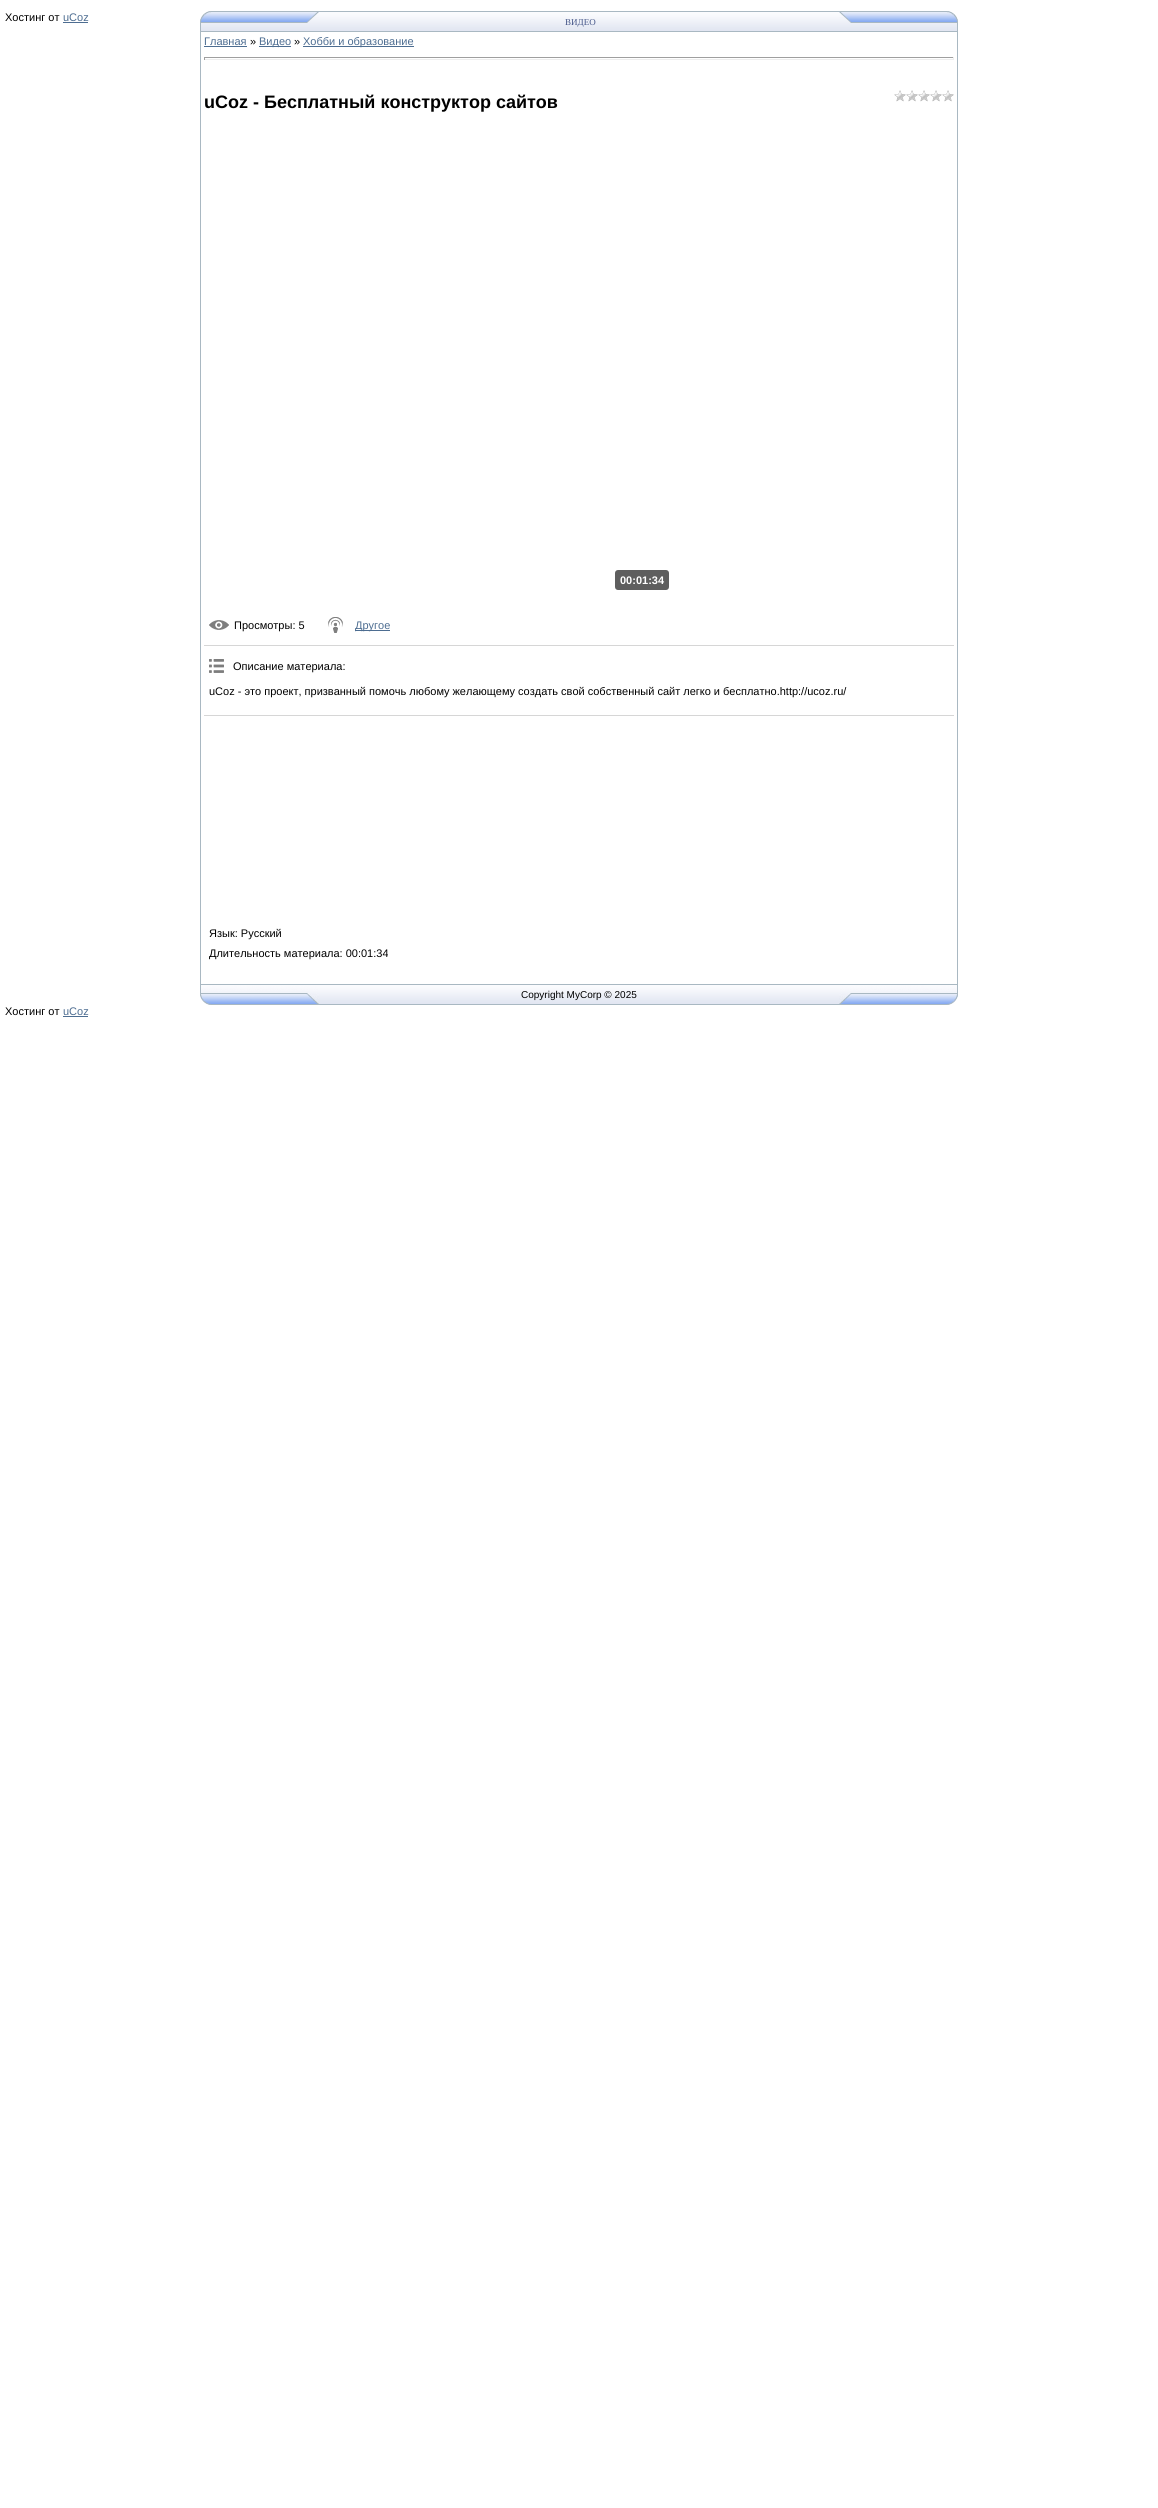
import math
import cairo

surface = cairo.ImageSurface(cairo.Format.RGB24, 1158, 2508)
ctx = cairo.Context(surface)
options = cairo.FontOptions()
options.set_hint_metrics(cairo.HintMetrics.OFF)
options.set_hint_style(cairo.HintStyle.NONE)
ctx.set_font_options(options)
ctx.set_miter_limit(4)


def ink(r, g, b):
    ctx.set_source_rgb(r / 255, g / 255, b / 255)


def write(x, y, s, family, size, color, bold=False, italic=False):
    ctx.select_font_face(family, cairo.FontSlant.ITALIC if italic else cairo.FontSlant.NORMAL, cairo.FontWeight.BOLD if bold else cairo.FontWeight.NORMAL)
    ctx.set_font_size(size)
    ink(*color)
    ctx.move_to(x, y)
    ctx.show_text(s)


def block(x, y, w, h, *color):
    ink(*color)
    ctx.rectangle(x, y, w, h)
    ctx.fill()


def round_path(x, y, w, h, r):
    ctx.new_sub_path()
    for i, (u, v) in enumerate([(x + w - r, y + h - r), (x + r, y + h - r), (x + r, y + r), (x + w - r, y + r)]):
        ctx.arc(u, v, r, i * math.pi / 2, (i + 1) * math.pi / 2)
    ctx.close_path()


def paste(path, x, y, w, h):
    ctx.save()
    ctx.set_source_surface(cairo.ImageSurface.create_from_png(path), x, y)
    ctx.rectangle(x, y, w, h)
    ctx.fill()
    ctx.restore()


s1 = dict(family="Liberation Sans", size=11, color=(0, 0, 0))
s2 = dict(family="Liberation Sans", size=11, color=(77, 109, 145))
s3 = dict(family="Liberation Serif", size=9, color=(68, 85, 136))
s4 = dict(family="Liberation Sans", size=18, color=(0, 0, 0), bold=True)
s5 = dict(family="Liberation Sans", size=11, color=(255, 255, 255), bold=True)
s6 = dict(family="Liberation Sans", size=10, color=(0, 0, 0))

ink(255, 255, 255)
ctx.paint()
write(5, 21, "Хостинг от", **s1)
write(63, 21, "uCoz", **s2)
block(63, 22, 25, 1, 77, 109, 145)
paste("pic1.png", 200, 11, 119, 21)
paste("pic2.png", 319, 11, 520, 21)
write(565, 25, "ВИДЕО", **s3)
paste("pic3.png", 839, 11, 119, 21)
block(957, 32, 1, 952, 169, 184, 194)
block(200, 32, 1, 952, 169, 184, 194)
write(204, 45, "Главная", **s2)
block(204, 46, 43, 1, 77, 109, 145)
write(250, 45, "»", **s1)
block(259, 46, 32, 1, 77, 109, 145)
write(259, 45, "Видео", **s2)
write(294, 45, "»", **s1)
block(303, 46, 111, 1, 77, 109, 145)
write(303, 45, "Хобби и образование", **s2)
block(204, 57, 750, 1, 159, 159, 159)
block(953, 57, 1, 3, 238, 238, 238)
block(204, 59, 750, 1, 238, 238, 238)
block(204, 57, 1, 3, 159, 159, 159)
write(204, 108, "uCoz - Бесплатный конструктор сайтов", **s4)
paste("pic4.png", 894, 90, 60, 12)
ink(94, 94, 94)
round_path(615, 570, 54, 20, 3)
ctx.fill()
write(620, 584, "00:01:34", **s5)
paste("pic5.png", 209, 620, 20, 10)
write(234, 629, "Просмотры: 5", **s1)
paste("pic6.png", 328, 617, 15, 16)
block(355, 630, 35, 1, 77, 109, 145)
write(355, 629, "Другое", **s2)
block(204, 645, 750, 1, 214, 214, 214)
paste("pic7.png", 209, 659, 15, 14)
write(233, 670, "Описание материала:", **s1)
write(209, 695, "uCoz - это проект, призванный помочь любому желающему создать свой собственный сайт легко и бесплатно.http://ucoz.ru/", **s1)
block(204, 715, 750, 1, 214, 214, 214)
write(209, 937, "Язык: Русский", **s1)
write(209, 957, "Длительность материала: 00:01:34", **s1)
paste("pic8.png", 200, 984, 119, 21)
paste("pic2.png", 319, 984, 520, 21)
write(521, 998, "Copyright MyCorp © 2025", **s6)
paste("pic9.png", 839, 984, 119, 21)
write(5, 1015, "Хостинг от", **s1)
write(63, 1015, "uCoz", **s2)
block(63, 1016, 25, 1, 77, 109, 145)
surface.write_to_png("screenshot.png")
